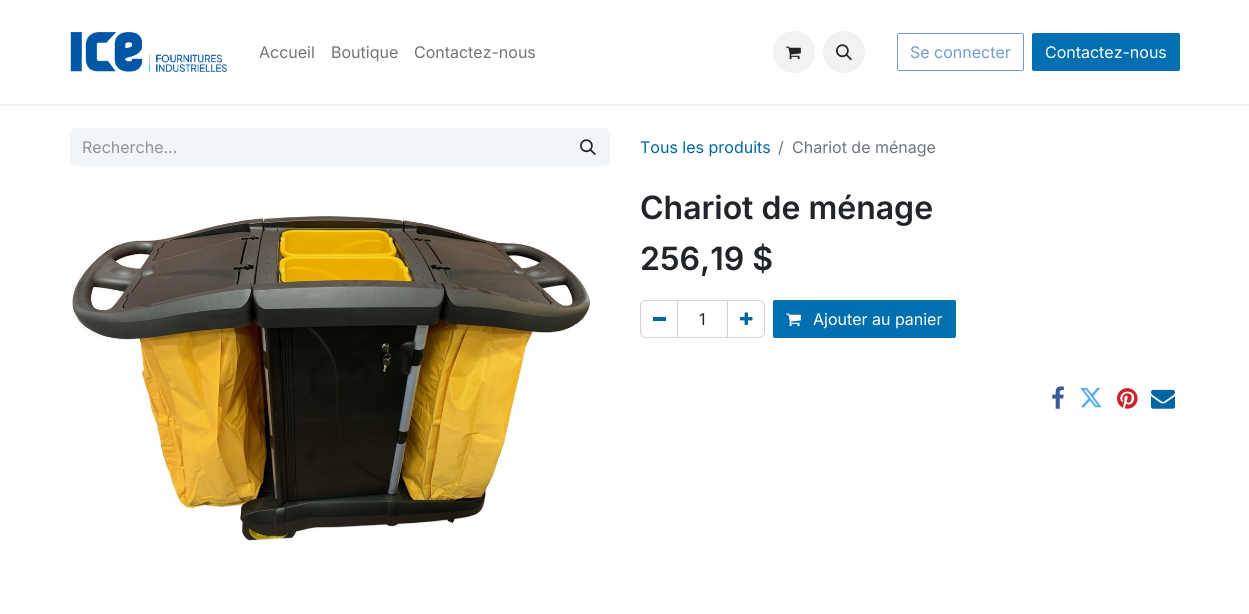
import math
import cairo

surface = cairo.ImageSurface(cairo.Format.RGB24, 1249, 614)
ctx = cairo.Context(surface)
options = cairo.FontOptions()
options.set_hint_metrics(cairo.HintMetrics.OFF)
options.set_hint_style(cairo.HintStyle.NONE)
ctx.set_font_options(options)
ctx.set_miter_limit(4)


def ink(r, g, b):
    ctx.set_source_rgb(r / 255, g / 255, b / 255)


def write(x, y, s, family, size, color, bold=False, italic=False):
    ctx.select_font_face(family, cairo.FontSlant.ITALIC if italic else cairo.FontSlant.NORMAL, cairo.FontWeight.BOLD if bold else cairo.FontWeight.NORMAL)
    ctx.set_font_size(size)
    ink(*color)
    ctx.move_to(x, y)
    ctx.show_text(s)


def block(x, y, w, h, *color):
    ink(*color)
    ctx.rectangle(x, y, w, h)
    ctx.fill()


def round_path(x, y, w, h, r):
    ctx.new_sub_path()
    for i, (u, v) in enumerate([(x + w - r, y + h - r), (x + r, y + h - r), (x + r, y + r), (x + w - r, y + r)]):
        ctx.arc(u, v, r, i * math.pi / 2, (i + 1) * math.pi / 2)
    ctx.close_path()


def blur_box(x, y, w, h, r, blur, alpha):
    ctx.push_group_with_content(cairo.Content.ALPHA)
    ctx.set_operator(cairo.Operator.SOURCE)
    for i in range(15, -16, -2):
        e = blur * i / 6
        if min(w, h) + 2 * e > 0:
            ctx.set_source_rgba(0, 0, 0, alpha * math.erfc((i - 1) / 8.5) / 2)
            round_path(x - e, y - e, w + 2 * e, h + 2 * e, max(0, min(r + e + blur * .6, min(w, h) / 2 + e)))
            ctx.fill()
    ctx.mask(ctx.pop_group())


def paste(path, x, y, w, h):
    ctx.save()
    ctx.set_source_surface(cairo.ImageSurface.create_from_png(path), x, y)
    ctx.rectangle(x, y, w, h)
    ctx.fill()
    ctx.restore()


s1 = dict(family="Inter", size=16, color=(115, 115, 115))
s2 = dict(family="Inter", size=16, color=(114, 157, 206))
s3 = dict(family="Inter", size=16, color=(255, 255, 255))
s4 = dict(family="Inter", size=16, color=(144, 146, 148))
s5 = dict(family="Inter", size=16, color=(0, 101, 161))
s6 = dict(family="Inter", size=16, color=(108, 117, 125))
s7 = dict(family="Inter SemiBold", size=32, color=(33, 37, 41))
s8 = dict(family="Inter", size=16, color=(33, 37, 41))

ink(255, 255, 255)
ctx.paint()
ctx.save()
ctx.rectangle(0, 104, 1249, 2)
ctx.clip()
ink(0, 0, 0)
blur_box(0, 1, 1249, 104, 0, 1.5, 0.1)
ctx.restore()
paste("pic1.png", 70, 32, 157, 40)
write(259, 58, "Accueil", **s1)
write(331, 58, "Boutique", **s1)
write(414, 58, "Contactez-nous", **s1)
ink(242, 242, 242)
ctx.new_path()
ctx.arc(794, 52, 21, 0, 2 * math.pi)
ctx.fill()
paste("pic2.png", 786, 46, 15, 14)
ctx.arc(844, 52, 21, 0, 2 * math.pi)
ctx.fill()
paste("pic3.png", 836, 44, 16, 17)
round_path(897.5, 33.5, 126, 37, 1.5)
ink(114, 157, 206)
ctx.set_line_width(1)
ctx.stroke()
write(910, 58, "Se connecter", **s2)
ink(0, 111, 176)
round_path(1032.5, 33.5, 147, 37, 1.5)
ctx.fill_preserve()
ctx.stroke()
write(1045, 58, "Contactez-nous", **s3)
ink(241, 245, 250)
ctx.new_path()
ctx.move_to(76, 128)
ctx.line_to(568, 128)
ctx.line_to(568, 166)
ctx.line_to(76, 166)
ctx.curve_to(72.5, 166, 70, 163.5, 70, 160)
ctx.line_to(70, 134)
ctx.curve_to(70, 130.5, 72.5, 128, 76, 128)
ctx.close_path()
ctx.fill()
write(82, 153, "Recherche…", **s4)
ink(241, 245, 250)
ctx.new_path()
ctx.move_to(567.5, 128.5)
ctx.line_to(604, 128.5)
ctx.curve_to(607, 128.5, 609.5, 131, 609.5, 134)
ctx.line_to(609.5, 160)
ctx.curve_to(609.5, 163, 607, 165.5, 604, 165.5)
ctx.line_to(567.5, 165.5)
ctx.close_path()
ctx.fill_preserve()
ctx.stroke()
paste("pic4.png", 580, 139, 16, 17)
write(640, 153, "Tous les produits", **s5)
write(778, 153, "/", **s6)
write(792, 153, "Chariot de ménage", **s6)
paste("pic5.png", 71, 215, 521, 327)
write(640, 219, "Chariot de ménage", **s7)
write(640, 270, "256,19 $", **s7)
ctx.rectangle(677.5, 300.5, 50, 37)
ink(206, 212, 218)
ctx.stroke()
ctx.new_path()
ctx.move_to(646, 300.5)
ctx.line_to(677.5, 300.5)
ctx.line_to(677.5, 337.5)
ctx.line_to(646, 337.5)
ctx.curve_to(643, 337.5, 640.5, 335, 640.5, 332)
ctx.line_to(640.5, 306)
ctx.curve_to(640.5, 303, 643, 300.5, 646, 300.5)
ctx.close_path()
ctx.stroke()
block(653, 317, 13, 4, 0, 101, 161)
write(699, 325, "1", **s8)
ctx.new_path()
ctx.move_to(727.5, 300.5)
ctx.line_to(759, 300.5)
ctx.curve_to(762, 300.5, 764.5, 303, 764.5, 306)
ctx.line_to(764.5, 332)
ctx.curve_to(764.5, 335, 762, 337.5, 759, 337.5)
ctx.line_to(727.5, 337.5)
ctx.close_path()
ink(206, 212, 218)
ctx.stroke()
paste("pic6.png", 740, 312, 13, 13)
ink(0, 111, 176)
round_path(773.5, 300.5, 182, 37, 1.5)
ctx.fill_preserve()
ctx.stroke()
paste("pic7.png", 786, 313, 15, 14)
write(813, 325, "Ajouter au panier", **s3)
paste("pic8.png", 1052, 386, 12, 23)
paste("pic9.png", 1080, 387, 22, 21)
paste("pic10.png", 1117, 388, 21, 21)
paste("pic11.png", 1151, 389, 24, 20)
surface.write_to_png("screenshot.png")
